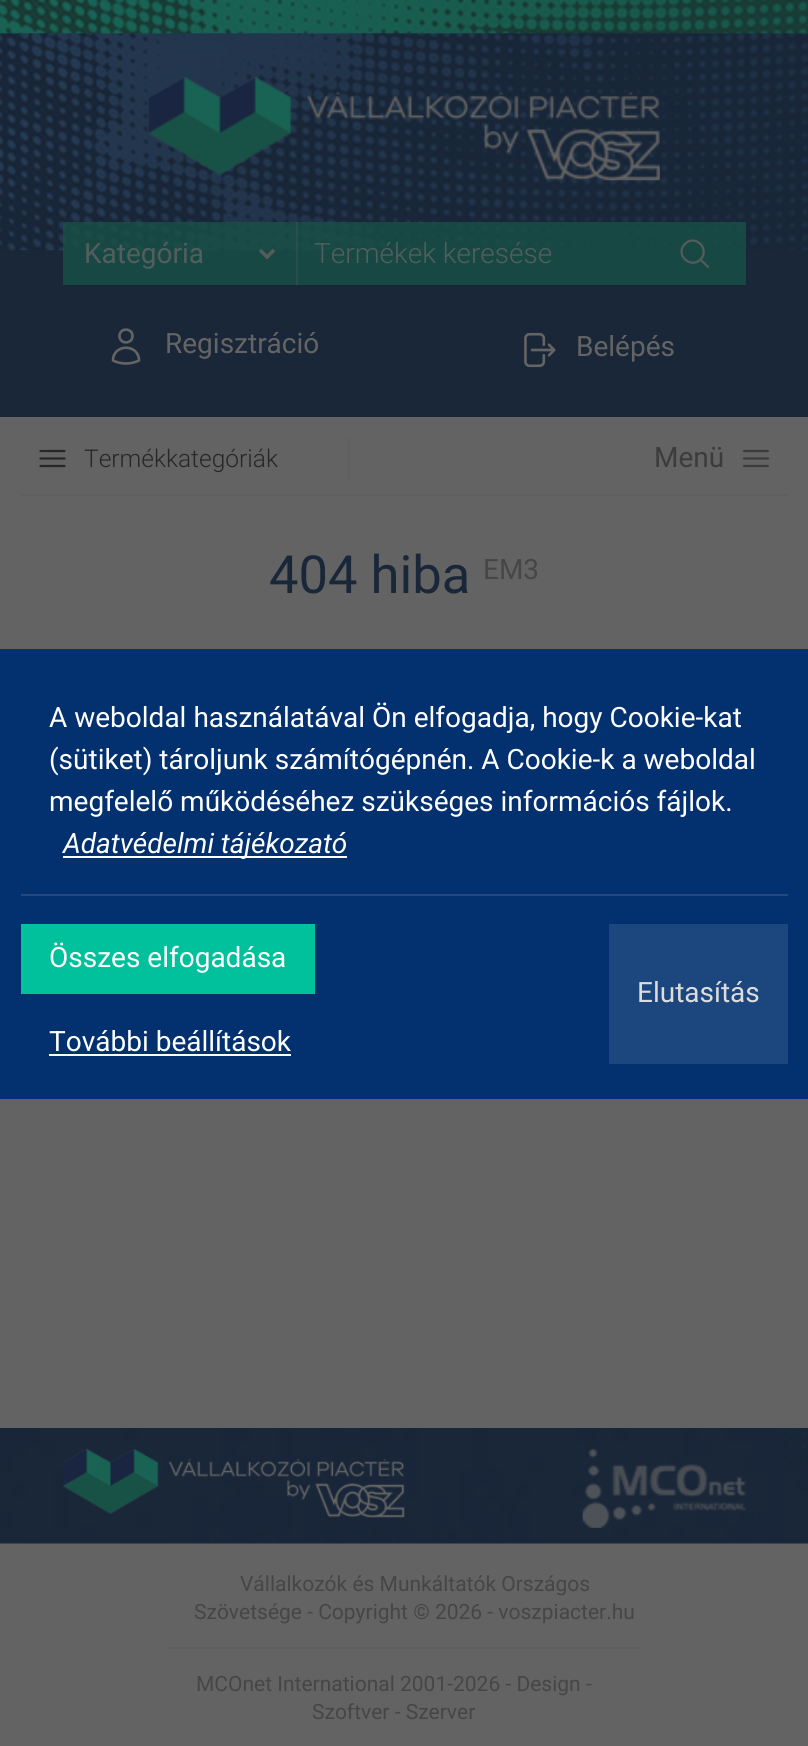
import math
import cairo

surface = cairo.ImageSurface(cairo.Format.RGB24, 808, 1746)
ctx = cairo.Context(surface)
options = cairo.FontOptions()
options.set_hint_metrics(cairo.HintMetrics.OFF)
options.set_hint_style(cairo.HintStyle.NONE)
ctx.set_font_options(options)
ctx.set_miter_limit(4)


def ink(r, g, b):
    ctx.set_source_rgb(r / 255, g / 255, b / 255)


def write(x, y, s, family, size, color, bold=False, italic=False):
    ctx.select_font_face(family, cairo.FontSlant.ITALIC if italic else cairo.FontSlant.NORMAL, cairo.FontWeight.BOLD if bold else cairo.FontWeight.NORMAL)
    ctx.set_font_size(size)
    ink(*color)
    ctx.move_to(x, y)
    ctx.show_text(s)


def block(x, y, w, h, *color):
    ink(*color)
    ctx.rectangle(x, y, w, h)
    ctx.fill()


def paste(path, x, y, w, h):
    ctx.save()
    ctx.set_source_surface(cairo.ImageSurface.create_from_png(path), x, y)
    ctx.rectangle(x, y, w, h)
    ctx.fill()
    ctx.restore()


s1 = dict(family="Roboto", size=28, color=(82, 94, 93))
s2 = dict(family="Roboto Light", size=28, color=(82, 94, 93))
s3 = dict(family="Roboto", size=28, color=(100, 100, 100))
s4 = dict(family="Roboto Light", size=24.5, color=(39, 39, 39))
s5 = dict(family="Roboto", size=28, color=(60, 60, 60))
s6 = dict(family="Roboto", size=52.5, color=(25, 39, 57))
s7 = dict(family="Roboto", size=28, color=(70, 70, 70))
s8 = dict(family="Roboto", size=21, color=(70, 70, 70))
s9 = dict(family="Roboto", size=28, color=(255, 255, 255))
s10 = dict(family="Roboto", size=28, color=(255, 255, 255), italic=True)
s11 = dict(family="Roboto", size=28, color=(221, 221, 221))

ink(99, 99, 99)
ctx.paint()
block(0, 250, 808, 167, 25, 39, 57)
paste("pic1.png", 0, 0, 808, 251)
paste("pic2.png", 148, 77, 512, 104)
ctx.set_source_rgba(0.094, 0.322, 0.275, 0.77)
ctx.rectangle(63, 222, 683, 63)
ctx.fill()
ctx.new_path()
ctx.move_to(260, 250)
ctx.line_to(267, 257)
ctx.line_to(274, 250)
ctx.set_source_rgba(0.392, 0.392, 0.392, 0.77)
ctx.set_line_width(3.5)
ctx.stroke()
write(84, 263, "Kategória", **s1)
ctx.set_source_rgba(0.392, 0.392, 0.392, 0.2)
ctx.rectangle(296, 222, 2, 63)
ctx.fill()
write(314, 263, "Termékek keresése", **s2)
ctx.new_path()
ctx.move_to(708, 267)
ctx.line_to(700.5, 259.5)
ctx.move_to(700.5, 259.5)
ctx.curve_to(710.5, 249, 695, 233.5, 685, 244)
ctx.curve_to(674.5, 254, 690, 269.5, 700.5, 259.5)
ctx.close_path()
ctx.set_source_rgba(0.392, 0.392, 0.392, 0.77)
ctx.set_line_width(2.2)
ctx.set_line_cap(cairo.LineCap.ROUND)
ctx.set_line_join(cairo.LineJoin.ROUND)
ctx.stroke()
ctx.new_path()
ctx.move_to(132.5, 336)
ctx.curve_to(132.5, 344.5, 119.5, 344.5, 119.5, 336)
ctx.curve_to(119.5, 327.5, 132.5, 327.5, 132.5, 336)
ctx.close_path()
ctx.move_to(113, 360.5)
ctx.curve_to(113, 343.5, 139, 343.5, 139, 360.5)
ctx.curve_to(131, 364.5, 121, 364.5, 113, 360.5)
ctx.close_path()
ink(100, 100, 100)
ctx.set_line_width(2.6)
ctx.stroke()
write(165, 353, "Regisztráció", **s3)
paste("pic3.png", 524, 332, 32, 36)
write(576, 356, "Belépés", **s3)
block(21, 494, 767, 2, 95, 95, 95)
block(348, 438, 2, 42, 95, 95, 95)
ctx.new_path()
ctx.move_to(40.5, 451)
ctx.line_to(64.5, 451)
ctx.move_to(40.5, 458.5)
ctx.line_to(64.5, 458.5)
ctx.move_to(40.5, 466)
ctx.line_to(64.5, 466)
ink(39, 39, 39)
ctx.set_line_width(2.2)
ctx.stroke()
write(84, 467, "Termékkategóriák", **s4)
write(654, 467, "Menü", **s5)
ctx.new_path()
ctx.move_to(744, 451)
ctx.line_to(768, 451)
ctx.move_to(744, 458.5)
ctx.line_to(768, 458.5)
ctx.move_to(744, 466)
ctx.line_to(768, 466)
ctx.stroke()
write(269, 593, "404 hiba", **s6)
write(483, 579, "EM3", **s7)
paste("pic4.png", 0, 1428, 808, 116)
paste("pic5.png", 63, 1449, 342, 69)
paste("pic6.png", 582, 1449, 164, 79)
write(240, 1591, "Vállalkozók és Munkáltatók Országos", **s8)
write(194, 1619, "Szövetsége - Copyright © 2026 - voszpiacter.hu", **s8)
block(166, 1647, 476, 2, 95, 95, 95)
write(196, 1691, "MCOnet International 2001-2026 - Design -", **s8)
write(312, 1719, "Szoftver - Szerver", **s8)
block(0, 649, 808, 450, 3, 49, 112)
block(21, 894, 767, 2, 36, 73, 124)
write(49, 727, "A weboldal használatával Ön elfogadja, hogy Cookie-kat", **s9)
write(49, 769, "(sütiket) tároljunk számítógépnén. A Cookie-k a weboldal", **s9)
write(49, 811, "megfelelő működéséhez szükséges információs fájlok.", **s9)
block(63, 856, 284, 2, 255, 255, 255)
write(63, 853, "Adatvédelmi tájékozató", **s10)
block(21, 924, 294, 70, 0, 193, 155)
write(49, 967, "Összes elfogadása", **s9)
write(49, 1051, "További beállítások", **s9)
block(49, 1054, 242, 2, 255, 255, 255)
block(609, 924, 179, 140, 28, 70, 126)
write(637, 1002, "Elutasítás", **s11)
surface.write_to_png("screenshot.png")
